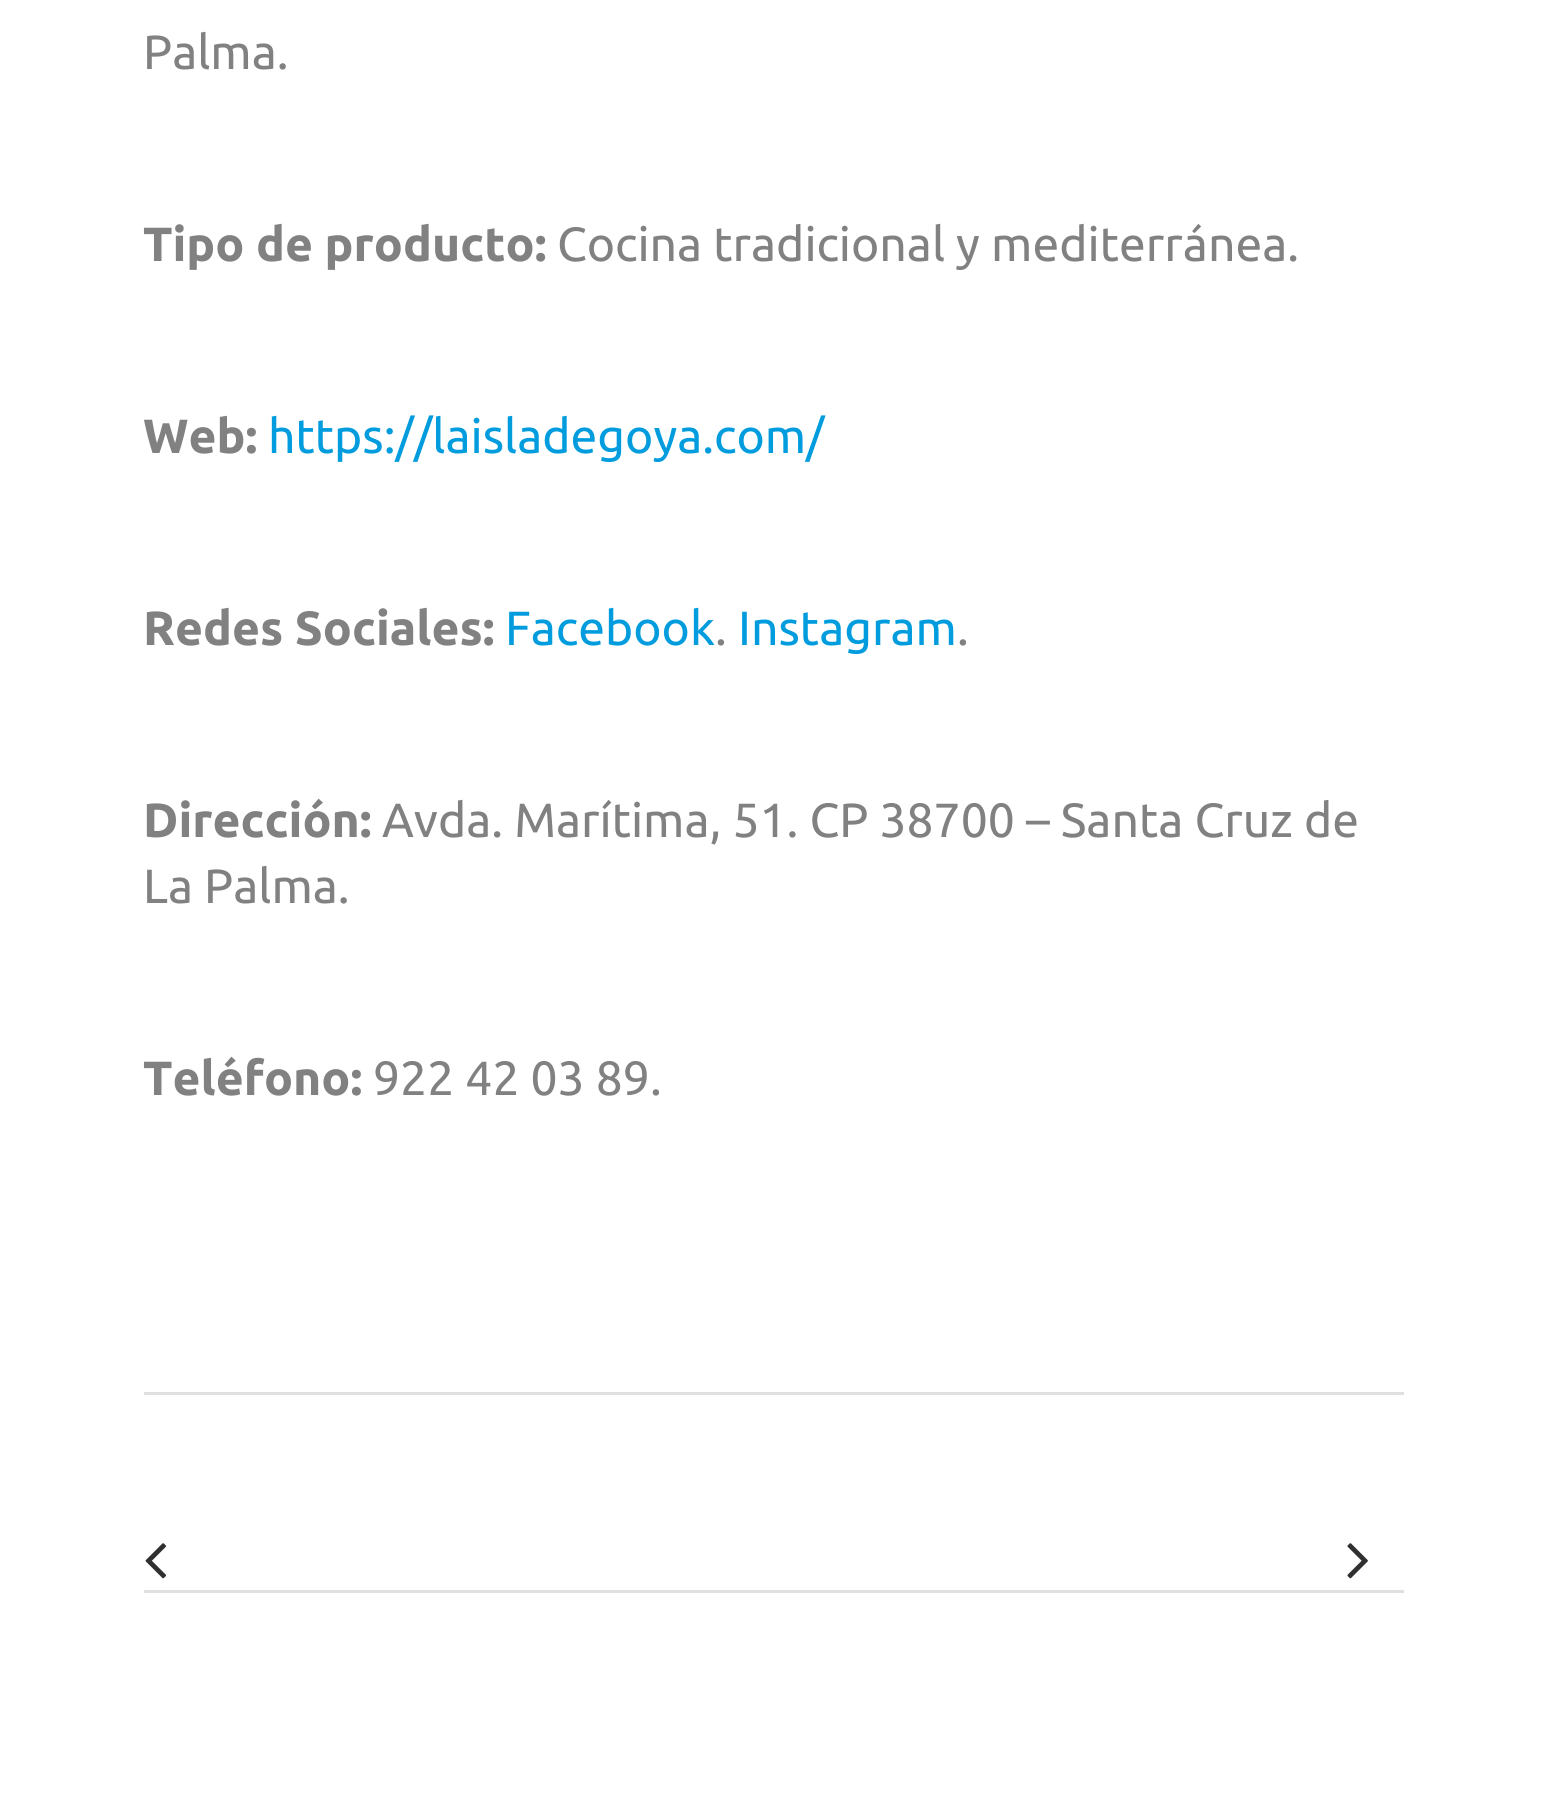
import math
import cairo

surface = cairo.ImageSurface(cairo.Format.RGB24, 1545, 1814)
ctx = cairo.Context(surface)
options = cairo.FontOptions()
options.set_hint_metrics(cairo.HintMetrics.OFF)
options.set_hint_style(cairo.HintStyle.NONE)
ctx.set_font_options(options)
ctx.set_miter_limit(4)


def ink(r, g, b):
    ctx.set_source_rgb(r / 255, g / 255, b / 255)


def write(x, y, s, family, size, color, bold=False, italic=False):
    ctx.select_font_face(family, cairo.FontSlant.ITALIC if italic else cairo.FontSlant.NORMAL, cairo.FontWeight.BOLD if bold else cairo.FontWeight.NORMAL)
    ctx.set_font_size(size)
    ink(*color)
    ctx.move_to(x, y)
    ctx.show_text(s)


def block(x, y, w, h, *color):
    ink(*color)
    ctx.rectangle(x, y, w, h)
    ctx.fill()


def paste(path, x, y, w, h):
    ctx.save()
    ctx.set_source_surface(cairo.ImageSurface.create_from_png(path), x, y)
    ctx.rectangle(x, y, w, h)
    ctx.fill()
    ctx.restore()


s1 = dict(family="Ubuntu", size=48, color=(129, 129, 129))
s2 = dict(family="Ubuntu", size=48, color=(129, 129, 129), bold=True)
s3 = dict(family="Ubuntu", size=48, color=(0, 156, 222))

ink(255, 255, 255)
ctx.paint()
write(143, 69, "Palma.", **s1)
write(143, 261, "Tipo de producto:", **s2)
write(557, 261, "Cocina tradicional y mediterránea.", **s1)
write(143, 453, "Web:", **s2)
write(268, 453, "https://laisladegoya.com/", **s3)
write(143, 645, "Redes Sociales:", **s2)
write(505, 645, "Facebook", **s3)
write(715, 645, ".", **s1)
write(738, 645, "Instagram", **s3)
write(957, 645, ".", **s1)
write(143, 837, "Dirección:", **s2)
write(382, 837, "Avda. Marítima, 51. CP 38700 – Santa Cruz de", **s1)
write(143, 903, "La Palma.", **s1)
write(143, 1095, "Teléfono:", **s2)
write(373, 1095, "922 42 03 89.", **s1)
block(144, 1392, 1260, 3, 224, 224, 224)
block(144, 1590, 1260, 3, 224, 224, 224)
paste("pic1.png", 145, 1543, 21, 36)
paste("pic2.png", 1347, 1543, 21, 36)
surface.write_to_png("screenshot.png")
